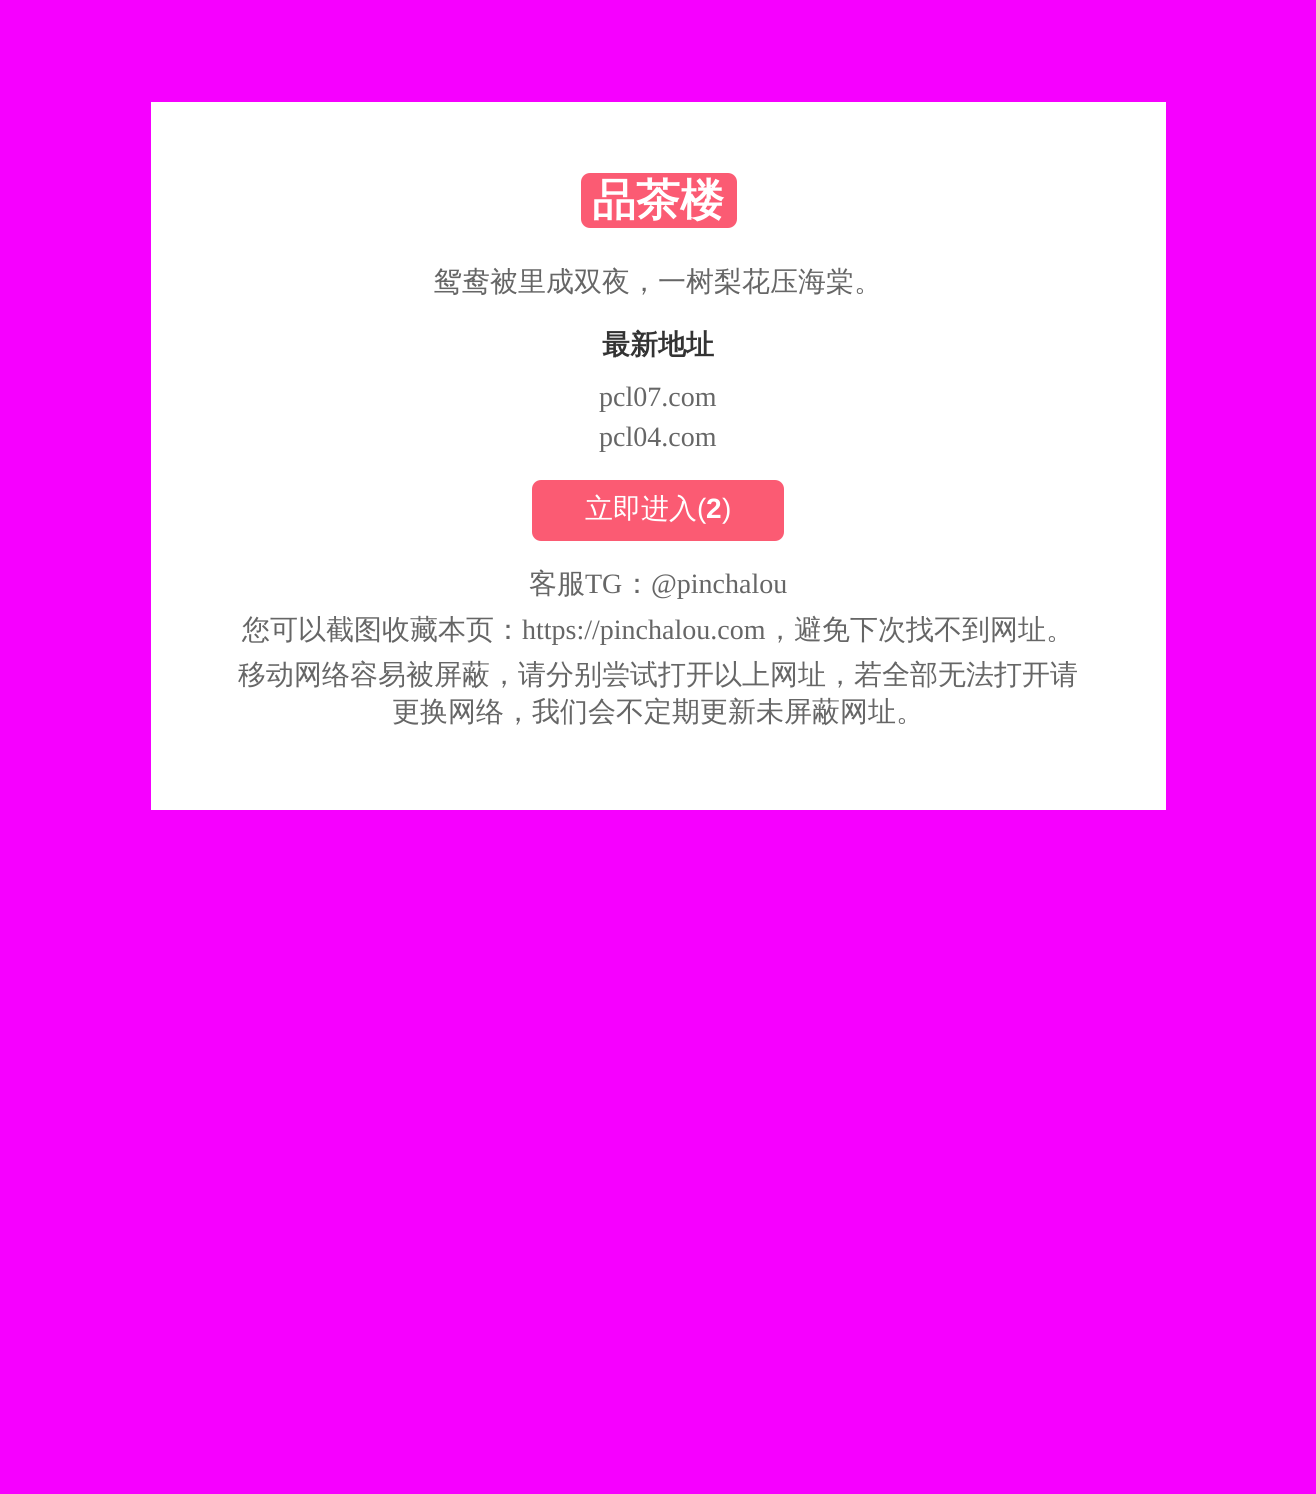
import math
import cairo

surface = cairo.ImageSurface(cairo.Format.RGB24, 1316, 1494)
ctx = cairo.Context(surface)
options = cairo.FontOptions()
options.set_hint_metrics(cairo.HintMetrics.OFF)
options.set_hint_style(cairo.HintStyle.NONE)
ctx.set_font_options(options)
ctx.set_miter_limit(4)


def ink(r, g, b):
    ctx.set_source_rgb(r / 255, g / 255, b / 255)


def write(x, y, s, family, size, color, bold=False, italic=False):
    ctx.select_font_face(family, cairo.FontSlant.ITALIC if italic else cairo.FontSlant.NORMAL, cairo.FontWeight.BOLD if bold else cairo.FontWeight.NORMAL)
    ctx.set_font_size(size)
    ink(*color)
    ctx.move_to(x, y)
    ctx.show_text(s)


def block(x, y, w, h, *color):
    ink(*color)
    ctx.rectangle(x, y, w, h)
    ctx.fill()


def round_path(x, y, w, h, r):
    ctx.new_sub_path()
    for i, (u, v) in enumerate([(x + w - r, y + h - r), (x + r, y + h - r), (x + r, y + r), (x + w - r, y + r)]):
        ctx.arc(u, v, r, i * math.pi / 2, (i + 1) * math.pi / 2)
    ctx.close_path()


s1 = dict(family="WenQuanYi Zen Hei", size=44, color=(255, 255, 255), bold=True)
s2 = dict(family="WenQuanYi Zen Hei Medium", size=28, color=(102, 102, 102))
s3 = dict(family="WenQuanYi Zen Hei", size=28, color=(51, 51, 51), bold=True)
s4 = dict(family="Liberation Serif", size=28, color=(102, 102, 102))
s5 = dict(family="WenQuanYi Zen Hei Medium", size=28, color=(255, 255, 255))
s6 = dict(family="Liberation Sans", size=28, color=(255, 255, 255))
s7 = dict(family="Liberation Sans", size=28, color=(255, 255, 255), bold=True)

ink(246, 0, 255)
ctx.paint()
block(151, 102, 1015, 708, 255, 255, 255)
ink(251, 91, 115)
round_path(581, 173, 156, 55, 9)
ctx.fill()
write(592, 215, "品茶楼", **s1)
write(434, 291, "鸳鸯被里成双夜，一树梨花压海棠。", **s2)
write(602, 354, "最新地址", **s3)
write(599, 406, "pcl07.com", **s4)
write(599, 446, "pcl04.com", **s4)
ink(251, 91, 115)
round_path(532, 480, 252, 61, 9)
ctx.fill()
write(585, 518, "立即进入", **s5)
write(697, 518, "(", **s6)
write(706, 518, "2", **s7)
write(722, 518, ")", **s6)
write(529, 593, "客服", **s2)
write(585, 593, "TG", **s4)
write(623, 593, "：", **s2)
write(651, 593, "@pinchalou", **s4)
write(242, 639, "您可以截图收藏本页：", **s2)
write(522, 639, "https://pinchalou.com", **s4)
write(766, 639, "，避免下次找不到网址。", **s2)
write(238, 684, "移动网络容易被屏蔽，请分别尝试打开以上网址，若全部无法打开请", **s2)
write(392, 721, "更换网络，我们会不定期更新未屏蔽网址。", **s2)
surface.write_to_png("screenshot.png")
